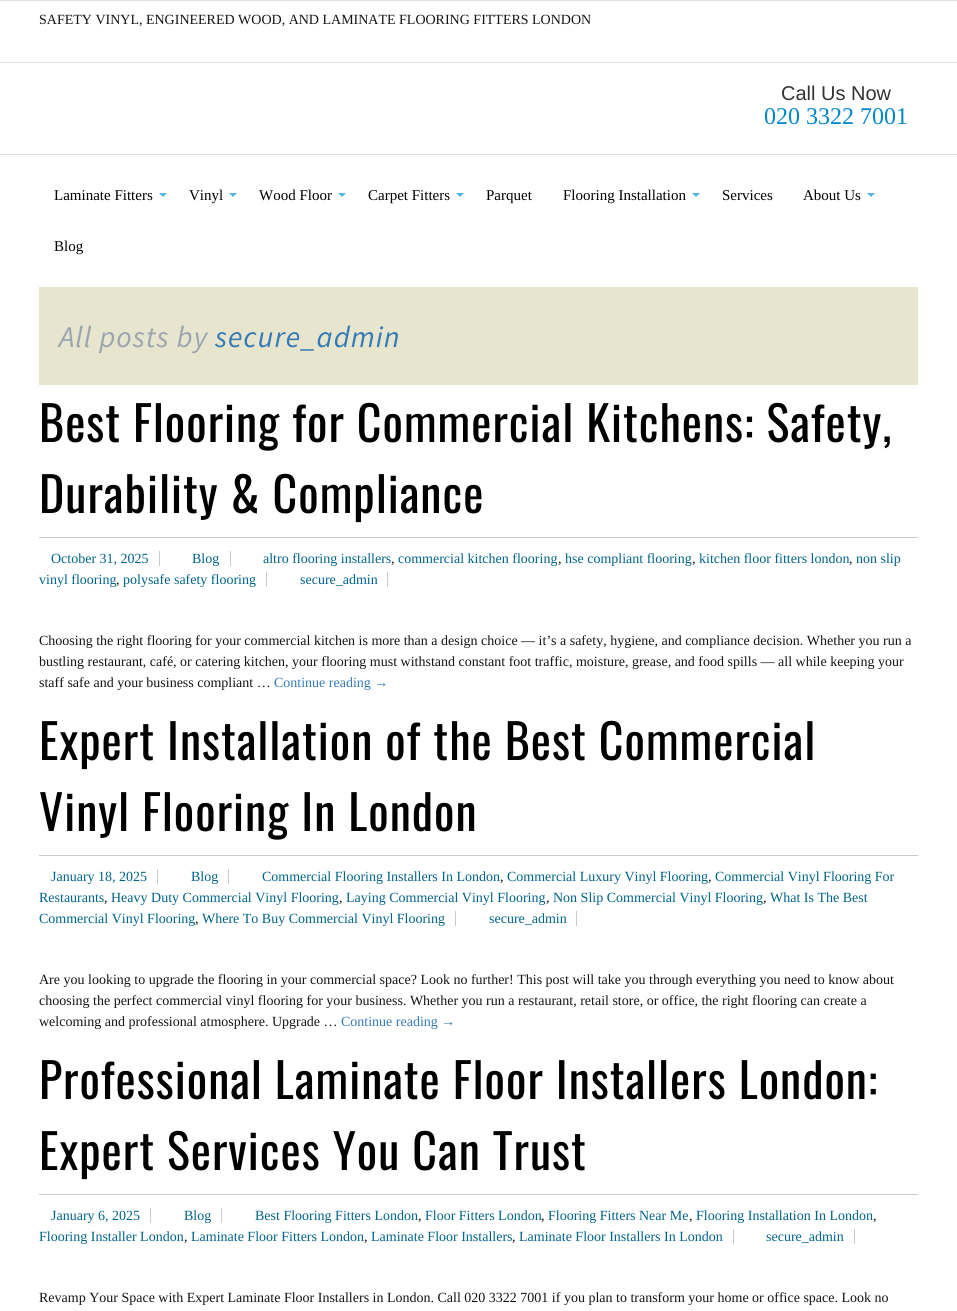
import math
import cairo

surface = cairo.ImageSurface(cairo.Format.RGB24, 957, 1311)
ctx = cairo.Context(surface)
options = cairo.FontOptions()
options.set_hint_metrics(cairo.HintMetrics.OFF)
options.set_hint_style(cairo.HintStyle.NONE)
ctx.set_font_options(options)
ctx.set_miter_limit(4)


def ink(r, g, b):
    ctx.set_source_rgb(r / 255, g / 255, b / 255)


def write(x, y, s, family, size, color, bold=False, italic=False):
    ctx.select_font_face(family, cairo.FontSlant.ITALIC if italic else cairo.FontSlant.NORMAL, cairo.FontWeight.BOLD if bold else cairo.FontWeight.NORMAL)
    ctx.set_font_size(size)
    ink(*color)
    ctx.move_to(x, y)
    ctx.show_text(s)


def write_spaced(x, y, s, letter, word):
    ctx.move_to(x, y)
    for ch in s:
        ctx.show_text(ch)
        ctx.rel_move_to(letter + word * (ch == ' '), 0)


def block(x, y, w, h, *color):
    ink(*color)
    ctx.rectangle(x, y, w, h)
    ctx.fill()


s1 = dict(family="Liberation Serif", size=14, color=(20, 20, 18))
s2 = dict(family="Liberation Sans", size=20, color=(51, 51, 51))
s3 = dict(family="Liberation Serif", size=24, color=(0, 136, 204))
s4 = dict(family="Liberation Serif", size=15, color=(0, 0, 0))
s5 = dict(family="Liberation Serif", size=14, color=(0, 99, 137))
s6 = dict(family="Liberation Serif", size=14, color=(51, 122, 183))

ink(255, 255, 255)
ctx.paint()
block(0, 0, 957, 1, 221, 221, 221)
write(39, 24, "SAFETY VINYL, ENGINEERED WOOD, AND LAMINATE FLOORING FITTERS LONDON", **s1)
block(0, 62, 957, 1, 221, 221, 221)
write(781, 100, "Call Us Now", **s2)
write(764, 124, "020 3322 7001", **s3)
block(0, 154, 957, 1, 221, 221, 221)
write(54, 200, "Laminate Fitters", **s4)
ink(76, 182, 234)
ctx.new_path()
ctx.move_to(159, 193)
ctx.line_to(167, 193)
ctx.line_to(163, 197)
ctx.close_path()
ctx.fill()
write(189, 200, "Vinyl", **s4)
ink(76, 182, 234)
ctx.new_path()
ctx.move_to(229, 193)
ctx.line_to(237, 193)
ctx.line_to(233, 197)
ctx.close_path()
ctx.fill()
write(259, 200, "Wood Floor", **s4)
ink(76, 182, 234)
ctx.new_path()
ctx.move_to(338, 193)
ctx.line_to(346, 193)
ctx.line_to(342, 197)
ctx.close_path()
ctx.fill()
write(368, 200, "Carpet Fitters", **s4)
ink(76, 182, 234)
ctx.new_path()
ctx.move_to(456, 193)
ctx.line_to(464, 193)
ctx.line_to(460, 197)
ctx.close_path()
ctx.fill()
write(486, 200, "Parquet", **s4)
write(563, 200, "Flooring Installation", **s4)
ink(76, 182, 234)
ctx.new_path()
ctx.move_to(692, 193)
ctx.line_to(700, 193)
ctx.line_to(696, 197)
ctx.close_path()
ctx.fill()
write(722, 200, "Services", **s4)
write(803, 200, "About Us", **s4)
ink(76, 182, 234)
ctx.new_path()
ctx.move_to(867, 193)
ctx.line_to(875, 193)
ctx.line_to(871, 197)
ctx.close_path()
ctx.fill()
write(54, 251, "Blog", **s4)
block(39, 287, 879, 98, 232, 229, 206)
ctx.select_font_face("Source Sans Pro", cairo.FontSlant.ITALIC)
ctx.set_font_size(30)
ink(155, 165, 176)
write_spaced(59, 347, "All posts by", 1, 0)
ink(51, 122, 183)
write_spaced(215, 347, "secure_admin", 1, 0)
ctx.select_font_face("Oswald")
ctx.set_font_size(48)
ink(0, 0, 0)
write_spaced(39, 442, "Best Flooring for Commercial Kitchens: Safety,", 1, 0)
write_spaced(39, 513, "Durability & Compliance", 1, 0)
block(39, 537, 879, 1, 204, 204, 204)
write(51, 563, "October 31, 2025", **s5)
block(159, 551, 1, 15, 204, 204, 204)
write(192, 563, "Blog", **s5)
block(230, 551, 1, 15, 204, 204, 204)
write(263, 563, "altro flooring installers", **s5)
write(391, 563, ",", **s1)
write(398, 563, "commercial kitchen flooring", **s5)
write(558, 563, ",", **s1)
write(565, 563, "hse compliant flooring", **s5)
write(692, 563, ",", **s1)
write(699, 563, "kitchen floor fitters london", **s5)
write(849, 563, ",", **s1)
write(856, 563, "non slip", **s5)
write(39, 584, "vinyl flooring", **s5)
write(116, 584, ",", **s1)
write(123, 584, "polysafe safety flooring", **s5)
block(266, 572, 1, 15, 204, 204, 204)
write(300, 584, "secure_admin", **s5)
block(387, 572, 1, 15, 204, 204, 204)
write(39, 645, "Choosing the right flooring for your commercial kitchen is more than a design choice — it’s a safety, hygiene, and compliance decision. Whether you run a", **s1)
write(39, 666, "bustling restaurant, café, or catering kitchen, your flooring must withstand constant foot traffic, moisture, grease, and food spills — all while keeping your", **s1)
write(39, 687, "staff safe and your business compliant …", **s1)
write(274, 687, "Continue reading →", **s6)
ctx.select_font_face("Oswald")
ctx.set_font_size(48)
ink(0, 0, 0)
write_spaced(39, 760, "Expert Installation of the Best Commercial", 1, 0)
write_spaced(39, 831, "Vinyl Flooring In London", 1, 0)
block(39, 855, 879, 1, 204, 204, 204)
write(51, 881, "January 18, 2025", **s5)
block(157, 869, 1, 15, 204, 204, 204)
write(191, 881, "Blog", **s5)
block(228, 869, 1, 15, 204, 204, 204)
write(262, 881, "Commercial Flooring Installers In London", **s5)
write(500, 881, ",", **s1)
write(507, 881, "Commercial Luxury Vinyl Flooring", **s5)
write(708, 881, ",", **s1)
write(715, 881, "Commercial Vinyl Flooring For", **s5)
write(39, 902, "Restaurants", **s5)
write(104, 902, ",", **s1)
write(111, 902, "Heavy Duty Commercial Vinyl Flooring", **s5)
write(339, 902, ",", **s1)
write(346, 902, "Laying Commercial Vinyl Flooring", **s5)
write(546, 902, ",", **s1)
write(553, 902, "Non Slip Commercial Vinyl Flooring", **s5)
write(763, 902, ",", **s1)
write(770, 902, "What Is The Best", **s5)
write(39, 923, "Commercial Vinyl Flooring", **s5)
write(195, 923, ",", **s1)
write(202, 923, "Where To Buy Commercial Vinyl Flooring", **s5)
block(455, 911, 1, 15, 204, 204, 204)
write(489, 923, "secure_admin", **s5)
block(576, 911, 1, 15, 204, 204, 204)
write(39, 984, "Are you looking to upgrade the flooring in your commercial space? Look no further! This post will take you through everything you need to know about", **s1)
write(39, 1005, "choosing the perfect commercial vinyl flooring for your business. Whether you run a restaurant, retail store, or office, the right flooring can create a", **s1)
write(39, 1026, "welcoming and professional atmosphere. Upgrade …", **s1)
write(341, 1026, "Continue reading →", **s6)
ctx.select_font_face("Oswald")
ctx.set_font_size(48)
ink(0, 0, 0)
write_spaced(39, 1099, "Professional Laminate Floor Installers London:", 1, 0)
write_spaced(39, 1170, "Expert Services You Can Trust", 1, 0)
block(39, 1194, 879, 1, 204, 204, 204)
write(51, 1220, "January 6, 2025", **s5)
block(150, 1208, 1, 15, 204, 204, 204)
write(184, 1220, "Blog", **s5)
block(221, 1208, 1, 15, 204, 204, 204)
write(255, 1220, "Best Flooring Fitters London", **s5)
write(418, 1220, ",", **s1)
write(425, 1220, "Floor Fitters London", **s5)
write(541, 1220, ",", **s1)
write(548, 1220, "Flooring Fitters Near Me", **s5)
write(689, 1220, ",", **s1)
write(696, 1220, "Flooring Installation In London", **s5)
write(873, 1220, ",", **s1)
write(39, 1241, "Flooring Installer London", **s5)
write(184, 1241, ",", **s1)
write(191, 1241, "Laminate Floor Fitters London", **s5)
write(364, 1241, ",", **s1)
write(371, 1241, "Laminate Floor Installers", **s5)
write(512, 1241, ",", **s1)
write(519, 1241, "Laminate Floor Installers In London", **s5)
block(733, 1229, 1, 15, 204, 204, 204)
write(766, 1241, "secure_admin", **s5)
block(854, 1229, 1, 15, 204, 204, 204)
write(39, 1302, "Revamp Your Space with Expert Laminate Floor Installers in London. Call 020 3322 7001 if you plan to transform your home or office space. Look no", **s1)
surface.write_to_png("screenshot.png")
